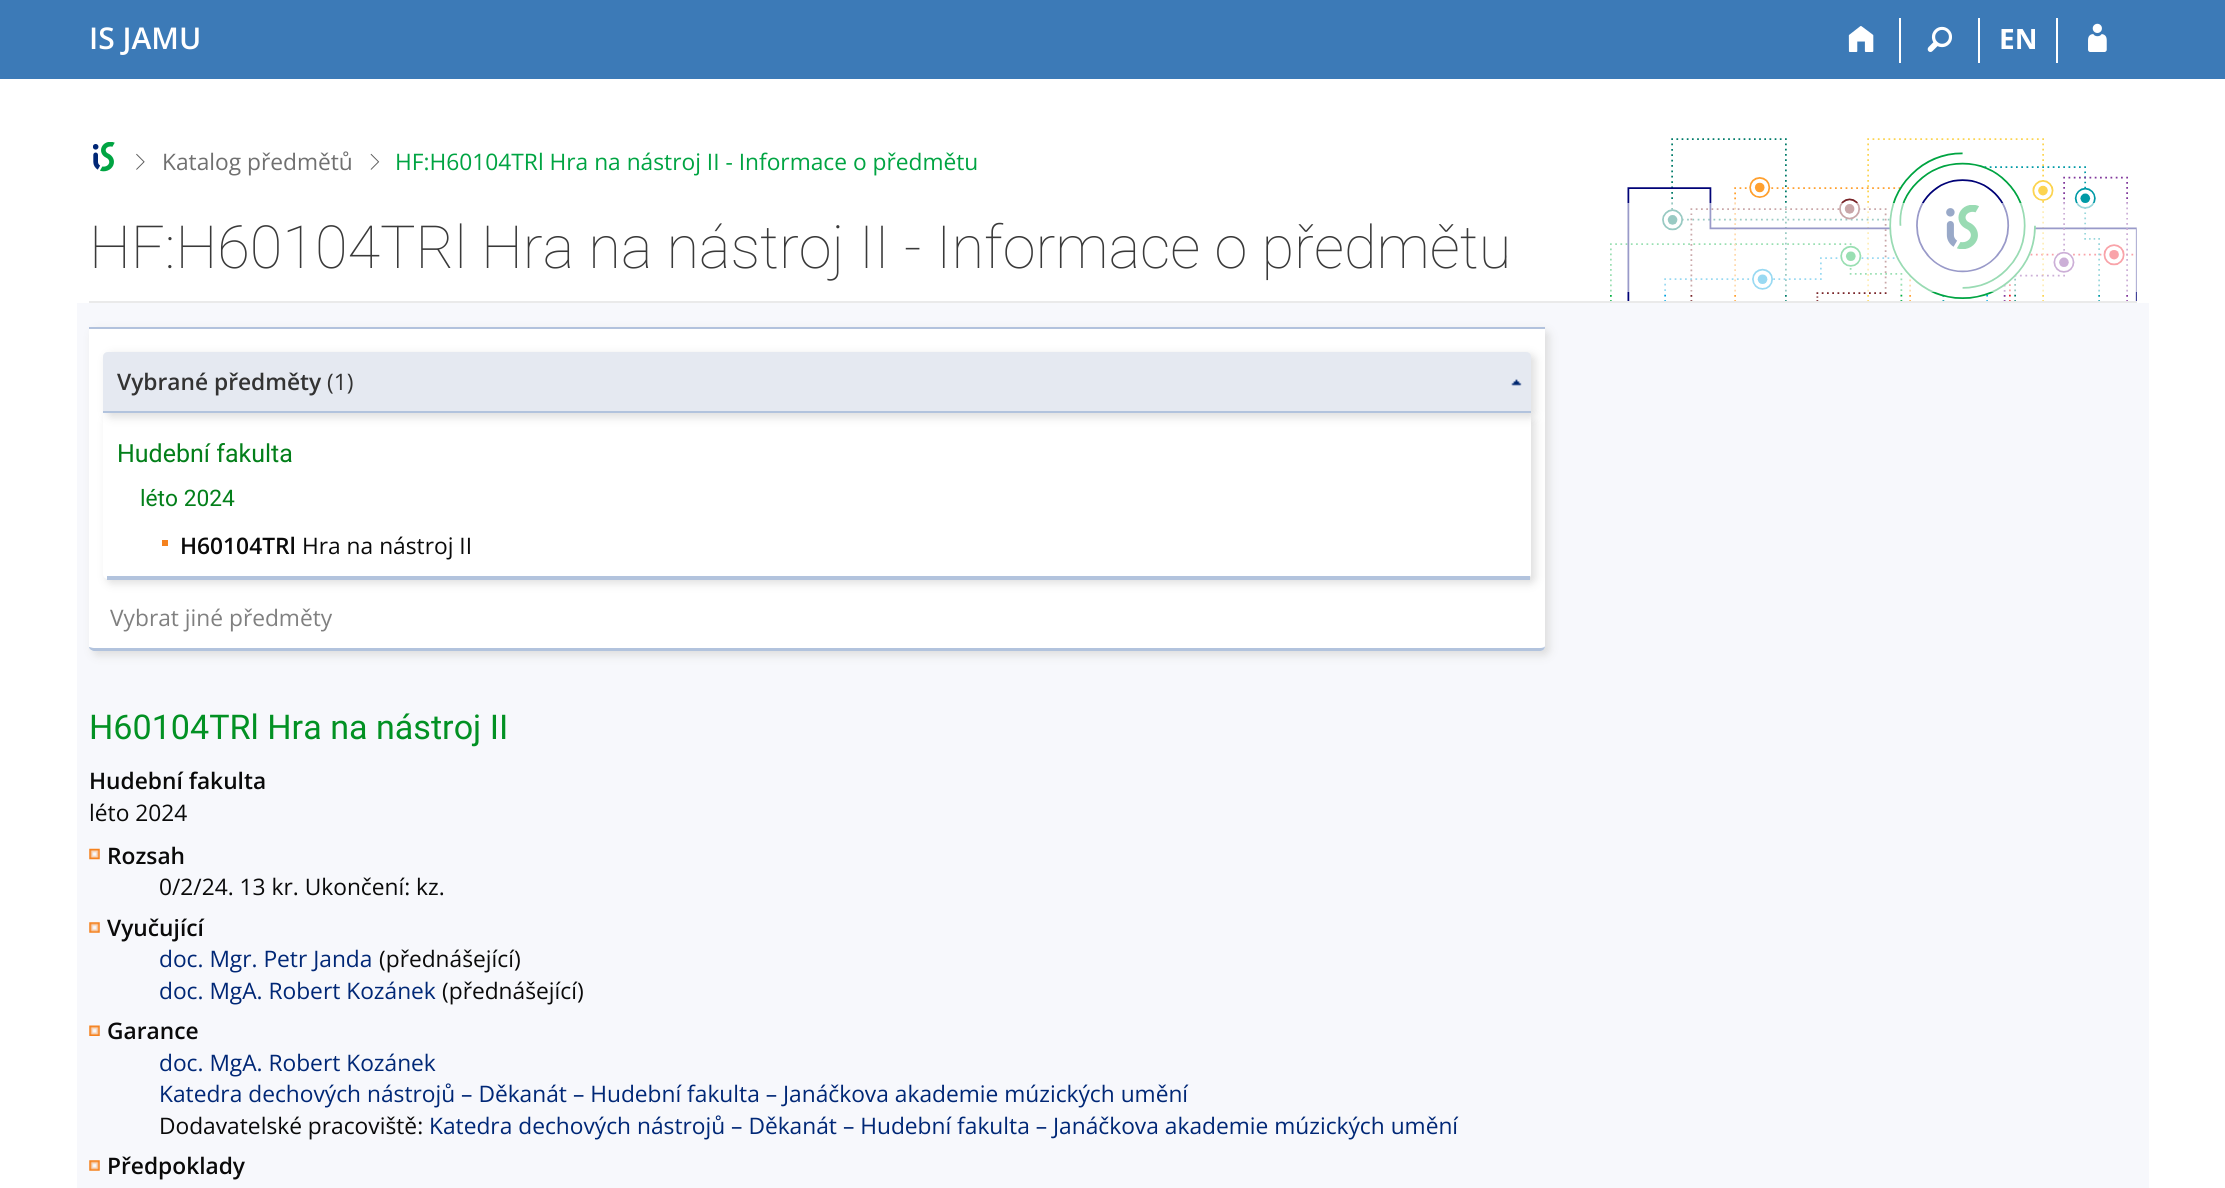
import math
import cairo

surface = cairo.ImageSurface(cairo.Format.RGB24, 2225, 1188)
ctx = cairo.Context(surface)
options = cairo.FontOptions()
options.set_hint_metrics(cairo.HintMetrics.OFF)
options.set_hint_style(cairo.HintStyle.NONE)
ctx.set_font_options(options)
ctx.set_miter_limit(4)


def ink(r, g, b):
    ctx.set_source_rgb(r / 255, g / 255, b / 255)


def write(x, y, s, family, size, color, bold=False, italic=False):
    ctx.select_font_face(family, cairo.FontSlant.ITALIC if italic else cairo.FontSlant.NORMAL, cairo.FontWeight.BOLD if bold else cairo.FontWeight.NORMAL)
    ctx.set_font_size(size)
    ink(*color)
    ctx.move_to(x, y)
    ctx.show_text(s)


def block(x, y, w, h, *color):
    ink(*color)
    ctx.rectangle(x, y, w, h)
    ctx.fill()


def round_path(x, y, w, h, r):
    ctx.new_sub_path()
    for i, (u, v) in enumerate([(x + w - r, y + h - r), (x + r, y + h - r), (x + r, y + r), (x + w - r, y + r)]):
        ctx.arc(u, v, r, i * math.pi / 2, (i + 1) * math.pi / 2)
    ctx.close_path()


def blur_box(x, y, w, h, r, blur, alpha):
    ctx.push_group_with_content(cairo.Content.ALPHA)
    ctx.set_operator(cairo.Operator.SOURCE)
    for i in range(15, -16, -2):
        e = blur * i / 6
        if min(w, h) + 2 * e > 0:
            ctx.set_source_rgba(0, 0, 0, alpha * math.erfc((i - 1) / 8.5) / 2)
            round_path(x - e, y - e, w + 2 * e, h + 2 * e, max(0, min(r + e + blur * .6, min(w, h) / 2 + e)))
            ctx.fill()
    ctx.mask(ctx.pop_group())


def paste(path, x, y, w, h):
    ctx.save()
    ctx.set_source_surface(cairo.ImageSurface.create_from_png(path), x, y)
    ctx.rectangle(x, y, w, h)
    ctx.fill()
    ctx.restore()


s1 = dict(family="Open Sans SemiBold", size=30, color=(255, 255, 255))
s2 = dict(family="Open Sans", size=28, color=(255, 255, 255), bold=True)
s3 = dict(family="Open Sans", size=22.75, color=(112, 112, 112))
s4 = dict(family="Open Sans", size=22.75, color=(0, 164, 66))
s5 = dict(family="Roboto Thin", size=59.5, color=(58, 58, 58))
s6 = dict(family="Open Sans SemiBold", size=22.75, color=(51, 51, 51))
s7 = dict(family="Open Sans", size=22.75, color=(51, 51, 51))
s8 = dict(family="Roboto", size=25, color=(3, 127, 26))
s9 = dict(family="Roboto", size=22.75, color=(3, 127, 26))
s10 = dict(family="Open Sans SemiBold", size=22.75, color=(10, 10, 10))
s11 = dict(family="Open Sans", size=22.75, color=(10, 10, 10))
s12 = dict(family="Open Sans", size=22.75, color=(128, 128, 128))
s13 = dict(family="Roboto", size=34.1, color=(2, 145, 35))
s14 = dict(family="Open Sans", size=22.75, color=(0, 39, 118))

ink(255, 255, 255)
ctx.paint()
block(0, 0, 2225, 79, 60, 122, 183)
write(89, 49, "IS JAMU", **s1)
block(1899, 18, 2, 45, 255, 255, 255)
paste("pic1.png", 1848, 26, 26, 26)
block(1978, 18, 2, 45, 255, 255, 255)
paste("pic2.png", 1927, 26, 25, 26)
block(2056, 18, 2, 45, 255, 255, 255)
write(1999, 49, "EN", **s2)
paste("pic3.png", 2088, 23, 19, 29)
paste("pic4.png", 93, 142, 22, 30)
paste("pic5.png", 136, 153, 9, 17)
write(162, 170, "Katalog předmětů", **s3)
paste("pic6.png", 370, 153, 10, 17)
write(395, 170, "HF:H60104TRl Hra na nástroj II - Informace o předmětu", **s4)
paste("pic7.png", 1610, 138, 527, 163)
paste("pic8.png", 1946, 205, 33, 44)
ctx.set_source_rgba(1, 1, 1, 0.6)
ctx.rectangle(1610, 203, 527, 89)
ctx.fill()
write(89, 268, "HF:H60104TRl Hra na nástroj II - Informace o předmětu", **s5)
block(89, 301, 2048, 2, 234, 234, 234)
block(77, 303, 2072, 885, 247, 248, 252)
ink(221, 221, 221)
blur_box(93, 331, 1456, 324, 5, 4.5, 1)
ink(255, 255, 255)
ctx.new_path()
ctx.move_to(89, 327)
ctx.line_to(1545, 327)
ctx.line_to(1545, 646)
ctx.curve_to(1545, 649, 1543, 651, 1540, 651)
ctx.line_to(94, 651)
ctx.curve_to(91, 651, 89, 649, 89, 646)
ctx.close_path()
ctx.fill()
block(89, 327, 1456, 2, 178, 194, 221)
ink(178, 195, 221)
ctx.new_path()
ctx.move_to(1540, 651)
ctx.curve_to(1543, 651, 1545, 649, 1545, 646)
ctx.curve_to(1545, 647, 1543, 648, 1540, 648)
ctx.line_to(94, 648)
ctx.curve_to(92, 648, 90, 647, 89, 647)
ctx.curve_to(89, 649, 92, 651, 94, 651)
ctx.close_path()
ctx.fill()
ink(221, 221, 221)
blur_box(107, 417, 1428, 166, 5, 4.5, 1)
ink(255, 255, 255)
ctx.new_path()
ctx.move_to(103, 413)
ctx.line_to(1531, 413)
ctx.line_to(1531, 574)
ctx.curve_to(1531, 577, 1529, 579, 1526, 579)
ctx.line_to(108, 579)
ctx.curve_to(105, 579, 103, 577, 103, 574)
ctx.close_path()
ctx.fill()
ink(221, 221, 221)
blur_box(107, 355, 1428, 62, 5, 4.5, 1)
ink(229, 233, 241)
ctx.new_path()
ctx.move_to(108, 352)
ctx.line_to(1526, 352)
ctx.curve_to(1529, 352, 1531, 354, 1531, 357)
ctx.line_to(1531, 413)
ctx.line_to(103, 413)
ctx.line_to(103, 357)
ctx.curve_to(103, 354, 105, 352, 108, 352)
ctx.close_path()
ctx.fill()
paste("pic9.png", 1511, 379, 11, 7)
block(103, 411, 1428, 2, 178, 195, 221)
write(117, 390, "Vybrané předměty", **s6)
write(327, 390, "(1)", **s7)
block(107, 576, 1423, 4, 178, 195, 221)
write(117, 462, "Hudební fakulta", **s8)
write(140, 506, "léto 2024", **s9)
block(162, 540, 6, 6, 245, 130, 31)
write(180, 554, "H60104TRl", **s10)
write(302, 554, "Hra na nástroj II", **s11)
write(110, 626, "Vybrat jiné předměty", **s12)
write(89, 739, "H60104TRl Hra na nástroj II", **s13)
write(89, 789, "Hudební fakulta", **s10)
write(89, 821, "léto 2024", **s11)
paste("pic10.png", 89, 848, 11, 12)
write(107, 864, "Rozsah", **s10)
write(159, 895, "0/2/24. 13 kr. Ukončení: kz.", **s11)
paste("pic11.png", 89, 922, 11, 11)
write(107, 936, "Vyučující", **s10)
write(159, 967, "doc. Mgr. Petr Janda", **s14)
write(379, 967, "(přednášející)", **s11)
write(159, 999, "doc. MgA. Robert Kozánek", **s14)
write(442, 999, "(přednášející)", **s11)
paste("pic12.png", 89, 1025, 11, 11)
write(107, 1039, "Garance", **s10)
write(159, 1071, "doc. MgA. Robert Kozánek", **s14)
write(159, 1102, "Katedra dechových nástrojů – Děkanát – Hudební fakulta – Janáčkova akademie múzických umění", **s14)
write(159, 1134, "Dodavatelské pracoviště:", **s11)
write(429, 1134, "Katedra dechových nástrojů – Děkanát – Hudební fakulta – Janáčkova akademie múzických umění", **s14)
paste("pic11.png", 89, 1160, 11, 11)
write(107, 1174, "Předpoklady", **s10)
surface.write_to_png("screenshot.png")
